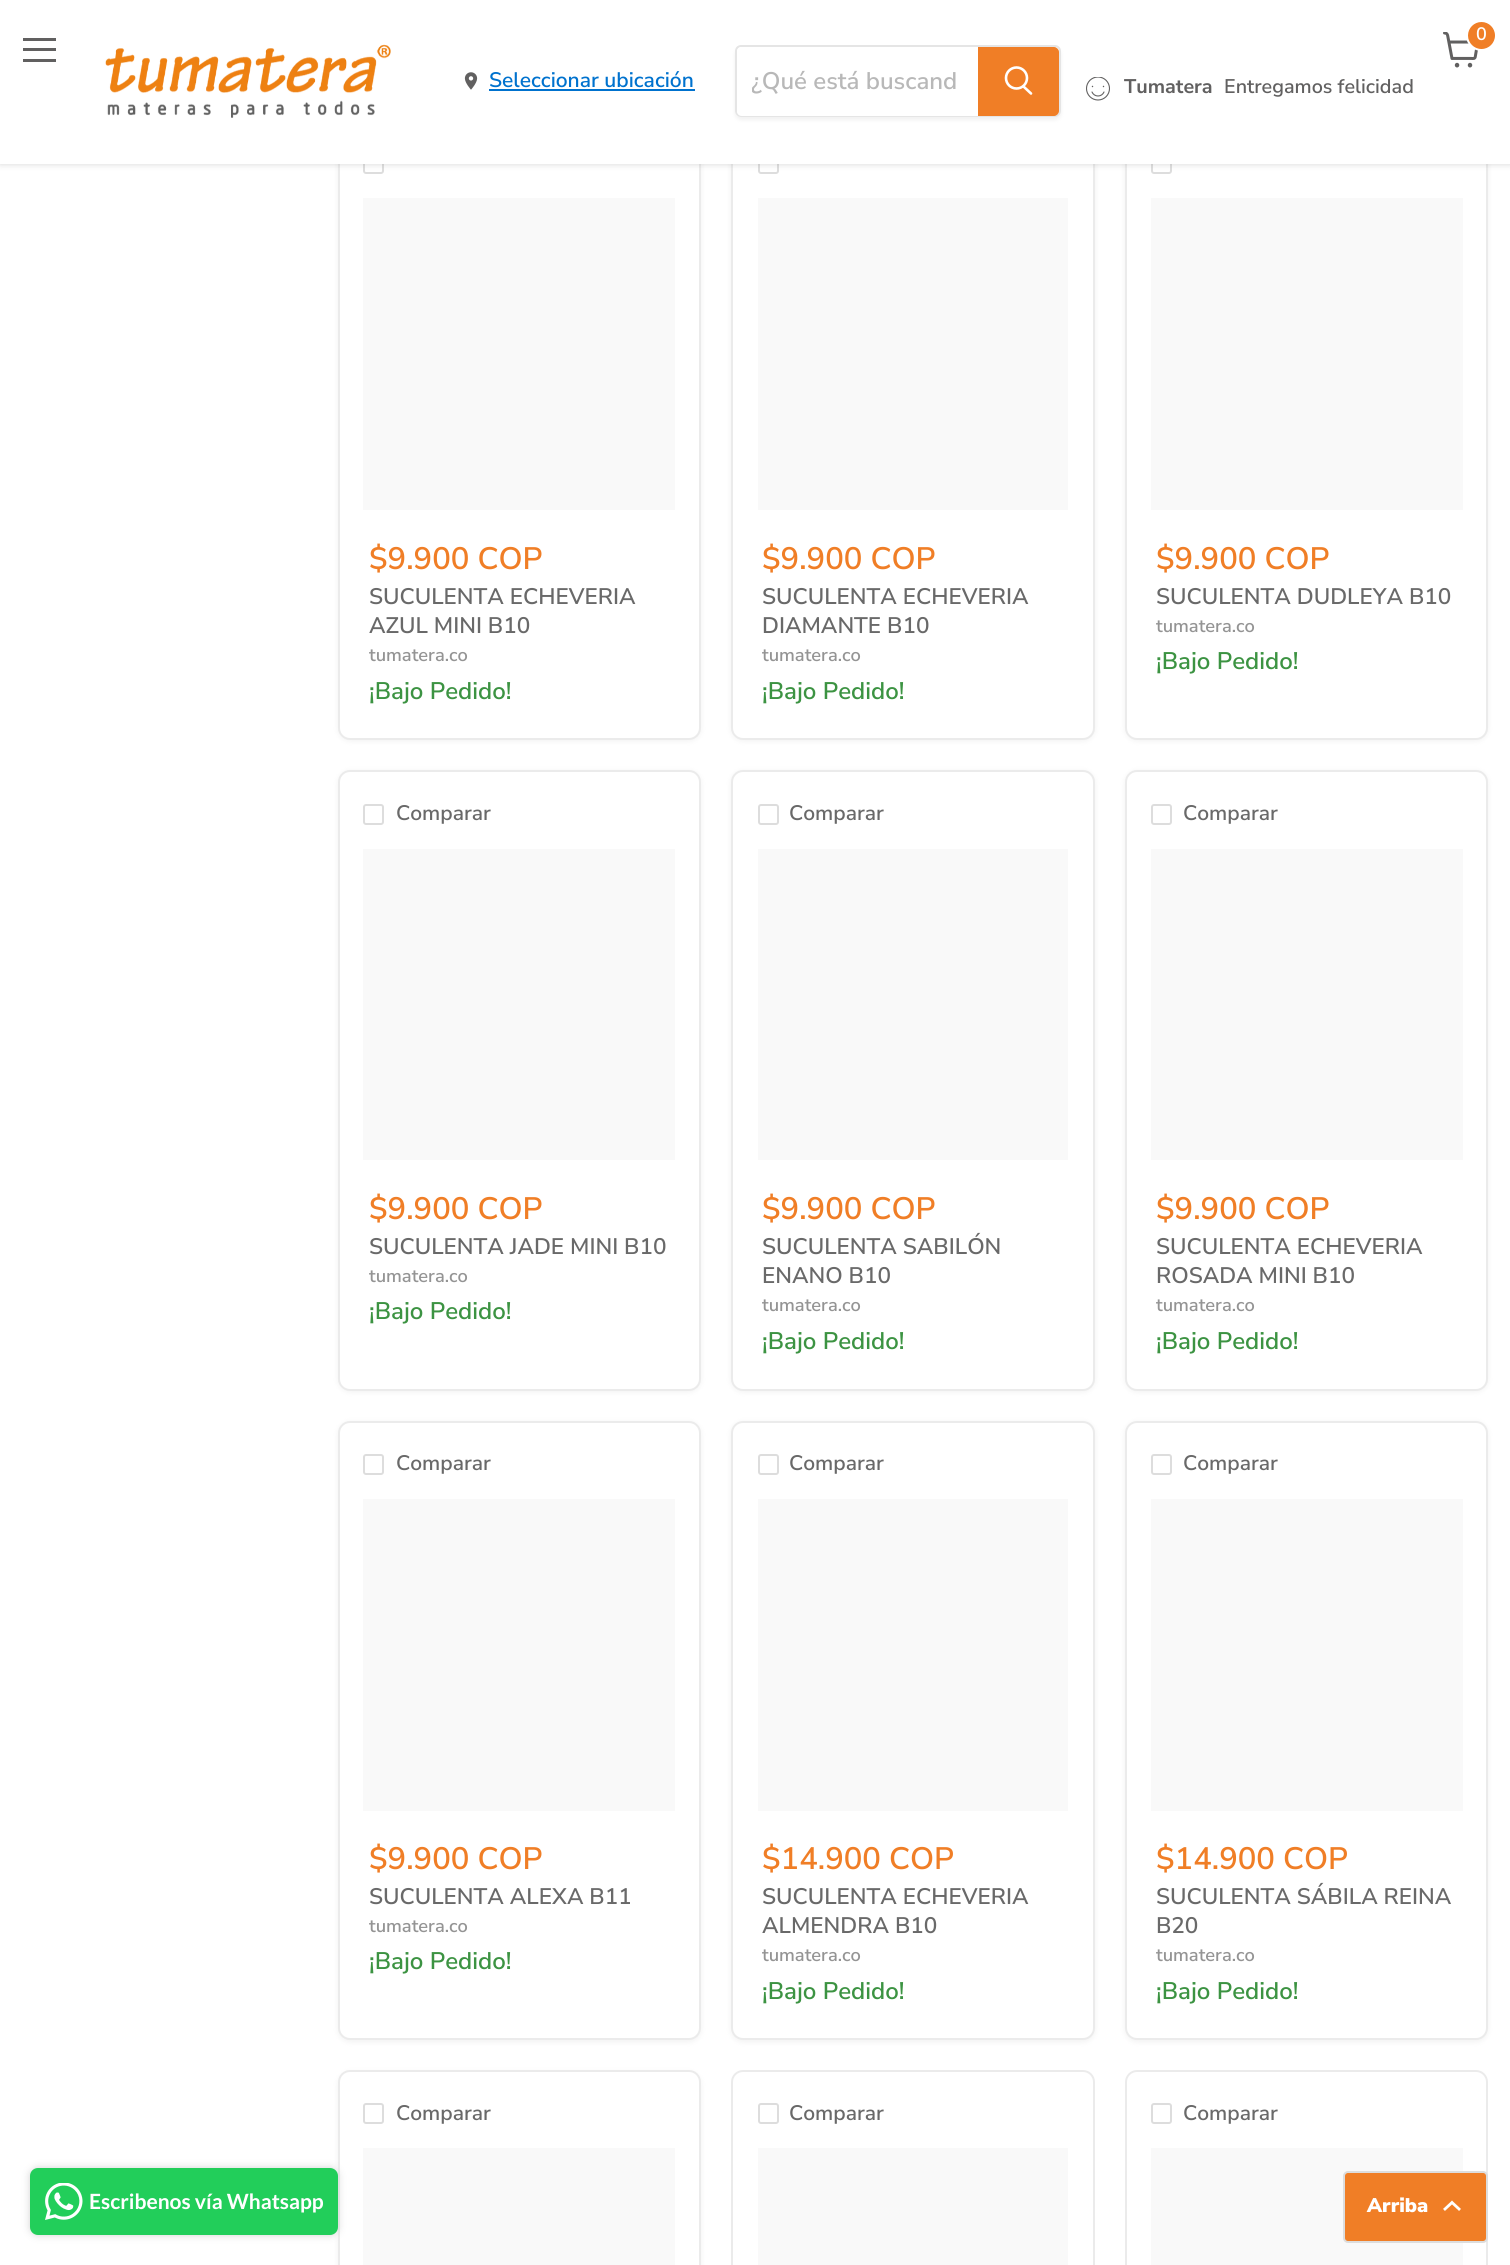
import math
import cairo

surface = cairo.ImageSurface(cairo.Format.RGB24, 1510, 2265)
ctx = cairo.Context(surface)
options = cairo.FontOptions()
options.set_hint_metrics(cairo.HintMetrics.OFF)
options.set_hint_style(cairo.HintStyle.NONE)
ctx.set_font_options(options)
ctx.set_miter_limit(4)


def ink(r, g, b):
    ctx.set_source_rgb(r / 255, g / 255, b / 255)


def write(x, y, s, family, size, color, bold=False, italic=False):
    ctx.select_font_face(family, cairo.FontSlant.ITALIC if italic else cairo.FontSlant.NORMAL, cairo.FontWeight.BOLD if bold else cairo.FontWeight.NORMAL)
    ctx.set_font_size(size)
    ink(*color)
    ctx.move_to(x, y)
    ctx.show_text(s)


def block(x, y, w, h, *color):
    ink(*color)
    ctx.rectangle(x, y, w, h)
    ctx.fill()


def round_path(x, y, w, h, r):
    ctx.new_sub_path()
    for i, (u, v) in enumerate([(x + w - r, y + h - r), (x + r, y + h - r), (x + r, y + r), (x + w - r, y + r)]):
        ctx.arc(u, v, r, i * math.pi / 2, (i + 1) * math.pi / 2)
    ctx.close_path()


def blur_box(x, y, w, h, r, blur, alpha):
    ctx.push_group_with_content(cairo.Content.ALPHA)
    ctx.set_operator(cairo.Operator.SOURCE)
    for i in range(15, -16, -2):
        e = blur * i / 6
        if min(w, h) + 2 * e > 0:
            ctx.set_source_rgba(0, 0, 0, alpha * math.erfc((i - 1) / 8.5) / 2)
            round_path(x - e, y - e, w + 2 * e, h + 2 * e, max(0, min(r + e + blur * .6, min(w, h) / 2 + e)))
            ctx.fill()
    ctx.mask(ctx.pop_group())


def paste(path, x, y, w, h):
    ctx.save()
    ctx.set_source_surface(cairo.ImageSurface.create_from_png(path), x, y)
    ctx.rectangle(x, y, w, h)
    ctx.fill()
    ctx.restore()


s1 = dict(family="Nunito Sans SemiBold", size=18, color=(255, 255, 255))
s2 = dict(family="Nunito Sans SemiBold", size=21, color=(0, 114, 206))
s3 = dict(family="Nunito Sans SemiBold", size=24, color=(184, 184, 184))
s4 = dict(family="Nunito Sans", size=19.75, color=(97, 96, 96), bold=True)
s5 = dict(family="Nunito Sans SemiBold", size=19.75, color=(97, 96, 96))
s6 = dict(family="Nunito Sans SemiBold", size=31, color=(240, 126, 38))
s7 = dict(family="Nunito Sans SemiBold", size=22.5, color=(105, 105, 105))
s8 = dict(family="Nunito Sans SemiBold", size=18.25, color=(148, 148, 148))
s9 = dict(family="Nunito Sans SemiBold", size=24, color=(60, 147, 66))
s10 = dict(family="Nunito Sans SemiBold", size=21, color=(105, 105, 105))
s11 = dict(family="Lato", size=21, color=(255, 255, 255), bold=True)
s12 = dict(family="Nunito Sans Black", size=19.75, color=(255, 255, 255))

ink(255, 255, 255)
ctx.paint()
ink(128, 128, 128)
blur_box(338, 122, 363, 619, 12, 3, 0.11)
ink(255, 255, 255)
round_path(338, 120, 363, 620, 12)
ctx.fill()
round_path(339, 121, 361, 618, 11)
ctx.set_source_rgba(0.502, 0.502, 0.502, 0.16)
ctx.stroke()
round_path(364, 154, 19, 19, 2)
ink(221, 221, 221)
ctx.stroke()
ink(128, 128, 128)
blur_box(731, 122, 364, 619, 12, 3, 0.11)
ink(255, 255, 255)
round_path(731, 120, 364, 620, 12)
ctx.fill()
round_path(732, 121, 362, 618, 11)
ctx.set_source_rgba(0.502, 0.502, 0.502, 0.16)
ctx.stroke()
round_path(759, 154, 19, 19, 2)
ink(221, 221, 221)
ctx.stroke()
ink(128, 128, 128)
blur_box(1125, 122, 363, 619, 12, 3, 0.11)
ink(255, 255, 255)
round_path(1125, 120, 363, 620, 12)
ctx.fill()
round_path(1126, 121, 361, 618, 11)
ctx.set_source_rgba(0.502, 0.502, 0.502, 0.16)
ctx.stroke()
round_path(1152, 154, 19, 19, 2)
ink(221, 221, 221)
ctx.stroke()
ink(128, 128, 128)
blur_box(0, 2, 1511, 163, 0, 3, 0.25)
block(0, 0, 1510, 164, 255, 255, 255)
paste("pic1.png", 1443, 32, 35, 36)
ink(240, 126, 38)
ctx.arc(1481.5, 35.5, 14.5, 0, 2 * math.pi)
ctx.fill_preserve()
ink(255, 255, 255)
ctx.stroke()
write(1476, 40, "0", **s1)
block(23, 38, 33, 3, 97, 96, 96)
block(23, 48, 33, 3, 97, 96, 96)
block(23, 59, 33, 3, 97, 96, 96)
paste("pic2.png", 105, 44, 286, 74)
paste("pic3.png", 464, 72, 14, 18)
write(489, 87, "Seleccionar ubicación", **s2)
block(489, 89, 206, 2, 0, 114, 206)
ctx.save()
ctx.set_fill_rule(cairo.FillRule.EVEN_ODD)
ctx.new_path()
ctx.move_to(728, 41)
ctx.line_to(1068, 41)
ctx.line_to(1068, 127)
ctx.line_to(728, 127)
ctx.close_path()
ctx.move_to(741, 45)
ctx.line_to(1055, 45)
ctx.curve_to(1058.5, 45, 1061, 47.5, 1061, 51)
ctx.line_to(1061, 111)
ctx.curve_to(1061, 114.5, 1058.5, 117, 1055, 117)
ctx.line_to(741, 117)
ctx.curve_to(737.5, 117, 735, 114.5, 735, 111)
ctx.line_to(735, 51)
ctx.curve_to(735, 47.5, 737.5, 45, 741, 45)
ctx.close_path()
ctx.clip()
ink(128, 128, 128)
blur_box(735, 48, 326, 72, 6, 2, 0.11)
ctx.restore()
round_path(736, 46, 324, 70, 5)
ctx.set_source_rgba(0.502, 0.502, 0.502, 0.2)
ctx.stroke()
ink(255, 255, 255)
ctx.new_path()
ctx.move_to(742, 47)
ctx.line_to(978, 47)
ctx.line_to(978, 116)
ctx.line_to(742, 116)
ctx.curve_to(739, 116, 737, 114, 737, 111)
ctx.line_to(737, 52)
ctx.curve_to(737, 49, 739, 47, 742, 47)
ctx.close_path()
ctx.fill()
ctx.save()
ctx.rectangle(752, 65, 211, 33)
ctx.clip()
write(751, 89, "¿Qué está buscand", **s3)
ctx.restore()
ink(240, 126, 38)
ctx.new_path()
ctx.move_to(979, 48)
ctx.line_to(1054, 48)
ctx.curve_to(1056, 48, 1058, 50, 1058, 52)
ctx.line_to(1058, 111)
ctx.curve_to(1058, 113, 1056, 115, 1054, 115)
ctx.line_to(979, 115)
ctx.close_path()
ctx.fill_preserve()
ctx.stroke()
ctx.new_path()
ctx.move_to(1031, 93.5)
ctx.line_to(1023.5, 86.5)
ink(255, 255, 255)
ctx.set_line_width(2.6)
ctx.set_line_cap(cairo.LineCap.ROUND)
ctx.stroke()
ctx.arc(1016.5, 78, 10.5, 0, 2 * math.pi)
ctx.set_line_cap(cairo.LineCap.BUTT)
ctx.stroke()
paste("pic4.png", 1086, 77, 24, 24)
write(1124, 93, "Tumatera", **s4)
write(1224, 93, "Entregamos felicidad", **s5)
block(363, 198, 312, 312, 249, 249, 249)
write(369, 569, "$9.900 COP", **s6)
write(369, 604, "SUCULENTA ECHEVERIA", **s7)
write(369, 633, "AZUL MINI B10", **s7)
write(369, 661, "tumatera.co", **s8)
write(369, 699, "¡Bajo Pedido!", **s9)
block(758, 198, 310, 312, 249, 249, 249)
write(762, 569, "$9.900 COP", **s6)
write(762, 604, "SUCULENTA ECHEVERIA", **s7)
write(762, 633, "DIAMANTE B10", **s7)
write(762, 661, "tumatera.co", **s8)
write(762, 699, "¡Bajo Pedido!", **s9)
block(1151, 198, 312, 312, 249, 249, 249)
write(1156, 569, "$9.900 COP", **s6)
write(1156, 604, "SUCULENTA DUDLEYA B10", **s7)
write(1156, 632, "tumatera.co", **s8)
write(1156, 669, "¡Bajo Pedido!", **s9)
ink(128, 128, 128)
blur_box(338, 771, 363, 621, 12, 3, 0.11)
ink(255, 255, 255)
round_path(338, 770, 363, 621, 12)
ctx.fill()
round_path(339, 771, 361, 619, 11)
ctx.set_source_rgba(0.502, 0.502, 0.502, 0.16)
ctx.set_line_width(2)
ctx.stroke()
round_path(364, 805, 19, 19, 2)
ink(221, 221, 221)
ctx.stroke()
write(396, 820, "Comparar", **s10)
block(363, 849, 312, 311, 249, 249, 249)
write(369, 1219, "$9.900 COP", **s6)
write(369, 1254, "SUCULENTA JADE MINI B10", **s7)
write(369, 1282, "tumatera.co", **s8)
write(369, 1319, "¡Bajo Pedido!", **s9)
ink(128, 128, 128)
blur_box(731, 771, 364, 621, 12, 3, 0.11)
ink(255, 255, 255)
round_path(731, 770, 364, 621, 12)
ctx.fill()
round_path(732, 771, 362, 619, 11)
ctx.set_source_rgba(0.502, 0.502, 0.502, 0.16)
ctx.stroke()
round_path(759, 805, 19, 19, 2)
ink(221, 221, 221)
ctx.stroke()
write(789, 820, "Comparar", **s10)
block(758, 849, 310, 311, 249, 249, 249)
write(762, 1219, "$9.900 COP", **s6)
write(762, 1254, "SUCULENTA SABILÓN", **s7)
write(762, 1283, "ENANO B10", **s7)
write(762, 1311, "tumatera.co", **s8)
write(762, 1349, "¡Bajo Pedido!", **s9)
ink(128, 128, 128)
blur_box(1125, 771, 363, 621, 12, 3, 0.11)
ink(255, 255, 255)
round_path(1125, 770, 363, 621, 12)
ctx.fill()
round_path(1126, 771, 361, 619, 11)
ctx.set_source_rgba(0.502, 0.502, 0.502, 0.16)
ctx.stroke()
round_path(1152, 805, 19, 19, 2)
ink(221, 221, 221)
ctx.stroke()
write(1183, 820, "Comparar", **s10)
block(1151, 849, 312, 311, 249, 249, 249)
write(1156, 1219, "$9.900 COP", **s6)
write(1156, 1254, "SUCULENTA ECHEVERIA", **s7)
write(1156, 1283, "ROSADA MINI B10", **s7)
write(1156, 1311, "tumatera.co", **s8)
write(1156, 1349, "¡Bajo Pedido!", **s9)
ink(128, 128, 128)
blur_box(338, 1422, 363, 620, 12, 3, 0.11)
ink(255, 255, 255)
round_path(338, 1421, 363, 619, 12)
ctx.fill()
round_path(339, 1422, 361, 617, 11)
ctx.set_source_rgba(0.502, 0.502, 0.502, 0.16)
ctx.stroke()
round_path(364, 1455, 19, 19, 2)
ink(221, 221, 221)
ctx.stroke()
write(396, 1470, "Comparar", **s10)
block(363, 1499, 312, 312, 249, 249, 249)
write(369, 1869, "$9.900 COP", **s6)
write(369, 1904, "SUCULENTA ALEXA B11", **s7)
write(369, 1932, "tumatera.co", **s8)
write(369, 1969, "¡Bajo Pedido!", **s9)
ink(128, 128, 128)
blur_box(731, 1422, 364, 620, 12, 3, 0.11)
ink(255, 255, 255)
round_path(732, 1422, 362, 617, 11)
ctx.fill_preserve()
ink(235, 235, 235)
ctx.stroke()
round_path(759, 1455, 19, 19, 2)
ink(221, 221, 221)
ctx.stroke()
write(789, 1470, "Comparar", **s10)
block(758, 1499, 310, 312, 249, 249, 249)
write(762, 1869, "$14.900 COP", **s6)
write(762, 1904, "SUCULENTA ECHEVERIA", **s7)
write(762, 1933, "ALMENDRA B10", **s7)
write(762, 1961, "tumatera.co", **s8)
write(762, 1999, "¡Bajo Pedido!", **s9)
ink(128, 128, 128)
blur_box(1125, 1422, 363, 620, 12, 3, 0.11)
ink(255, 255, 255)
round_path(1126, 1422, 361, 617, 11)
ctx.fill_preserve()
ink(235, 235, 235)
ctx.stroke()
round_path(1152, 1455, 19, 19, 2)
ink(221, 221, 221)
ctx.stroke()
write(1183, 1470, "Comparar", **s10)
block(1151, 1499, 312, 312, 249, 249, 249)
write(1156, 1869, "$14.900 COP", **s6)
write(1156, 1904, "SUCULENTA SÁBILA REINA", **s7)
write(1156, 1933, "B20", **s7)
write(1156, 1961, "tumatera.co", **s8)
write(1156, 1999, "¡Bajo Pedido!", **s9)
ink(128, 128, 128)
blur_box(338, 2072, 363, 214, 12, 3, 0.11)
ink(255, 255, 255)
round_path(339, 2071, 361, 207, 11)
ctx.fill_preserve()
ink(235, 235, 235)
ctx.stroke()
round_path(364, 2104, 19, 19, 2)
ink(221, 221, 221)
ctx.stroke()
write(396, 2120, "Comparar", **s10)
block(363, 2148, 312, 117, 249, 249, 249)
round_path(732, 2071, 362, 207, 11)
ink(235, 235, 235)
ctx.stroke()
round_path(759, 2104, 19, 19, 2)
ink(221, 221, 221)
ctx.stroke()
write(789, 2120, "Comparar", **s10)
block(758, 2148, 310, 117, 249, 249, 249)
round_path(1126, 2071, 361, 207, 11)
ink(235, 235, 235)
ctx.stroke()
round_path(1152, 2104, 19, 19, 2)
ink(221, 221, 221)
ctx.stroke()
write(1183, 2120, "Comparar", **s10)
block(1151, 2148, 312, 117, 249, 249, 249)
ink(211, 211, 211)
blur_box(30, 2168, 308, 67, 8, 4, 1)
ink(34, 206, 90)
round_path(30, 2168, 308, 67, 8)
ctx.fill()
paste("pic5.png", 45, 2183, 38, 37)
write(89, 2209, "Escribenos vía Whatsapp", **s11)
ink(240, 126, 38)
round_path(1344, 2172, 143, 70, 4)
ctx.fill_preserve()
ink(221, 221, 221)
ctx.stroke()
write(1367, 2212, "Arriba", **s12)
ctx.new_path()
ctx.move_to(1452, 2202.5)
ctx.line_to(1445, 2209)
ctx.move_to(1452, 2202.5)
ctx.line_to(1459, 2209)
ctx.set_line_width(2.8)
ctx.set_line_cap(cairo.LineCap.SQUARE)
ctx.stroke()
surface.write_to_png("screenshot.png")
